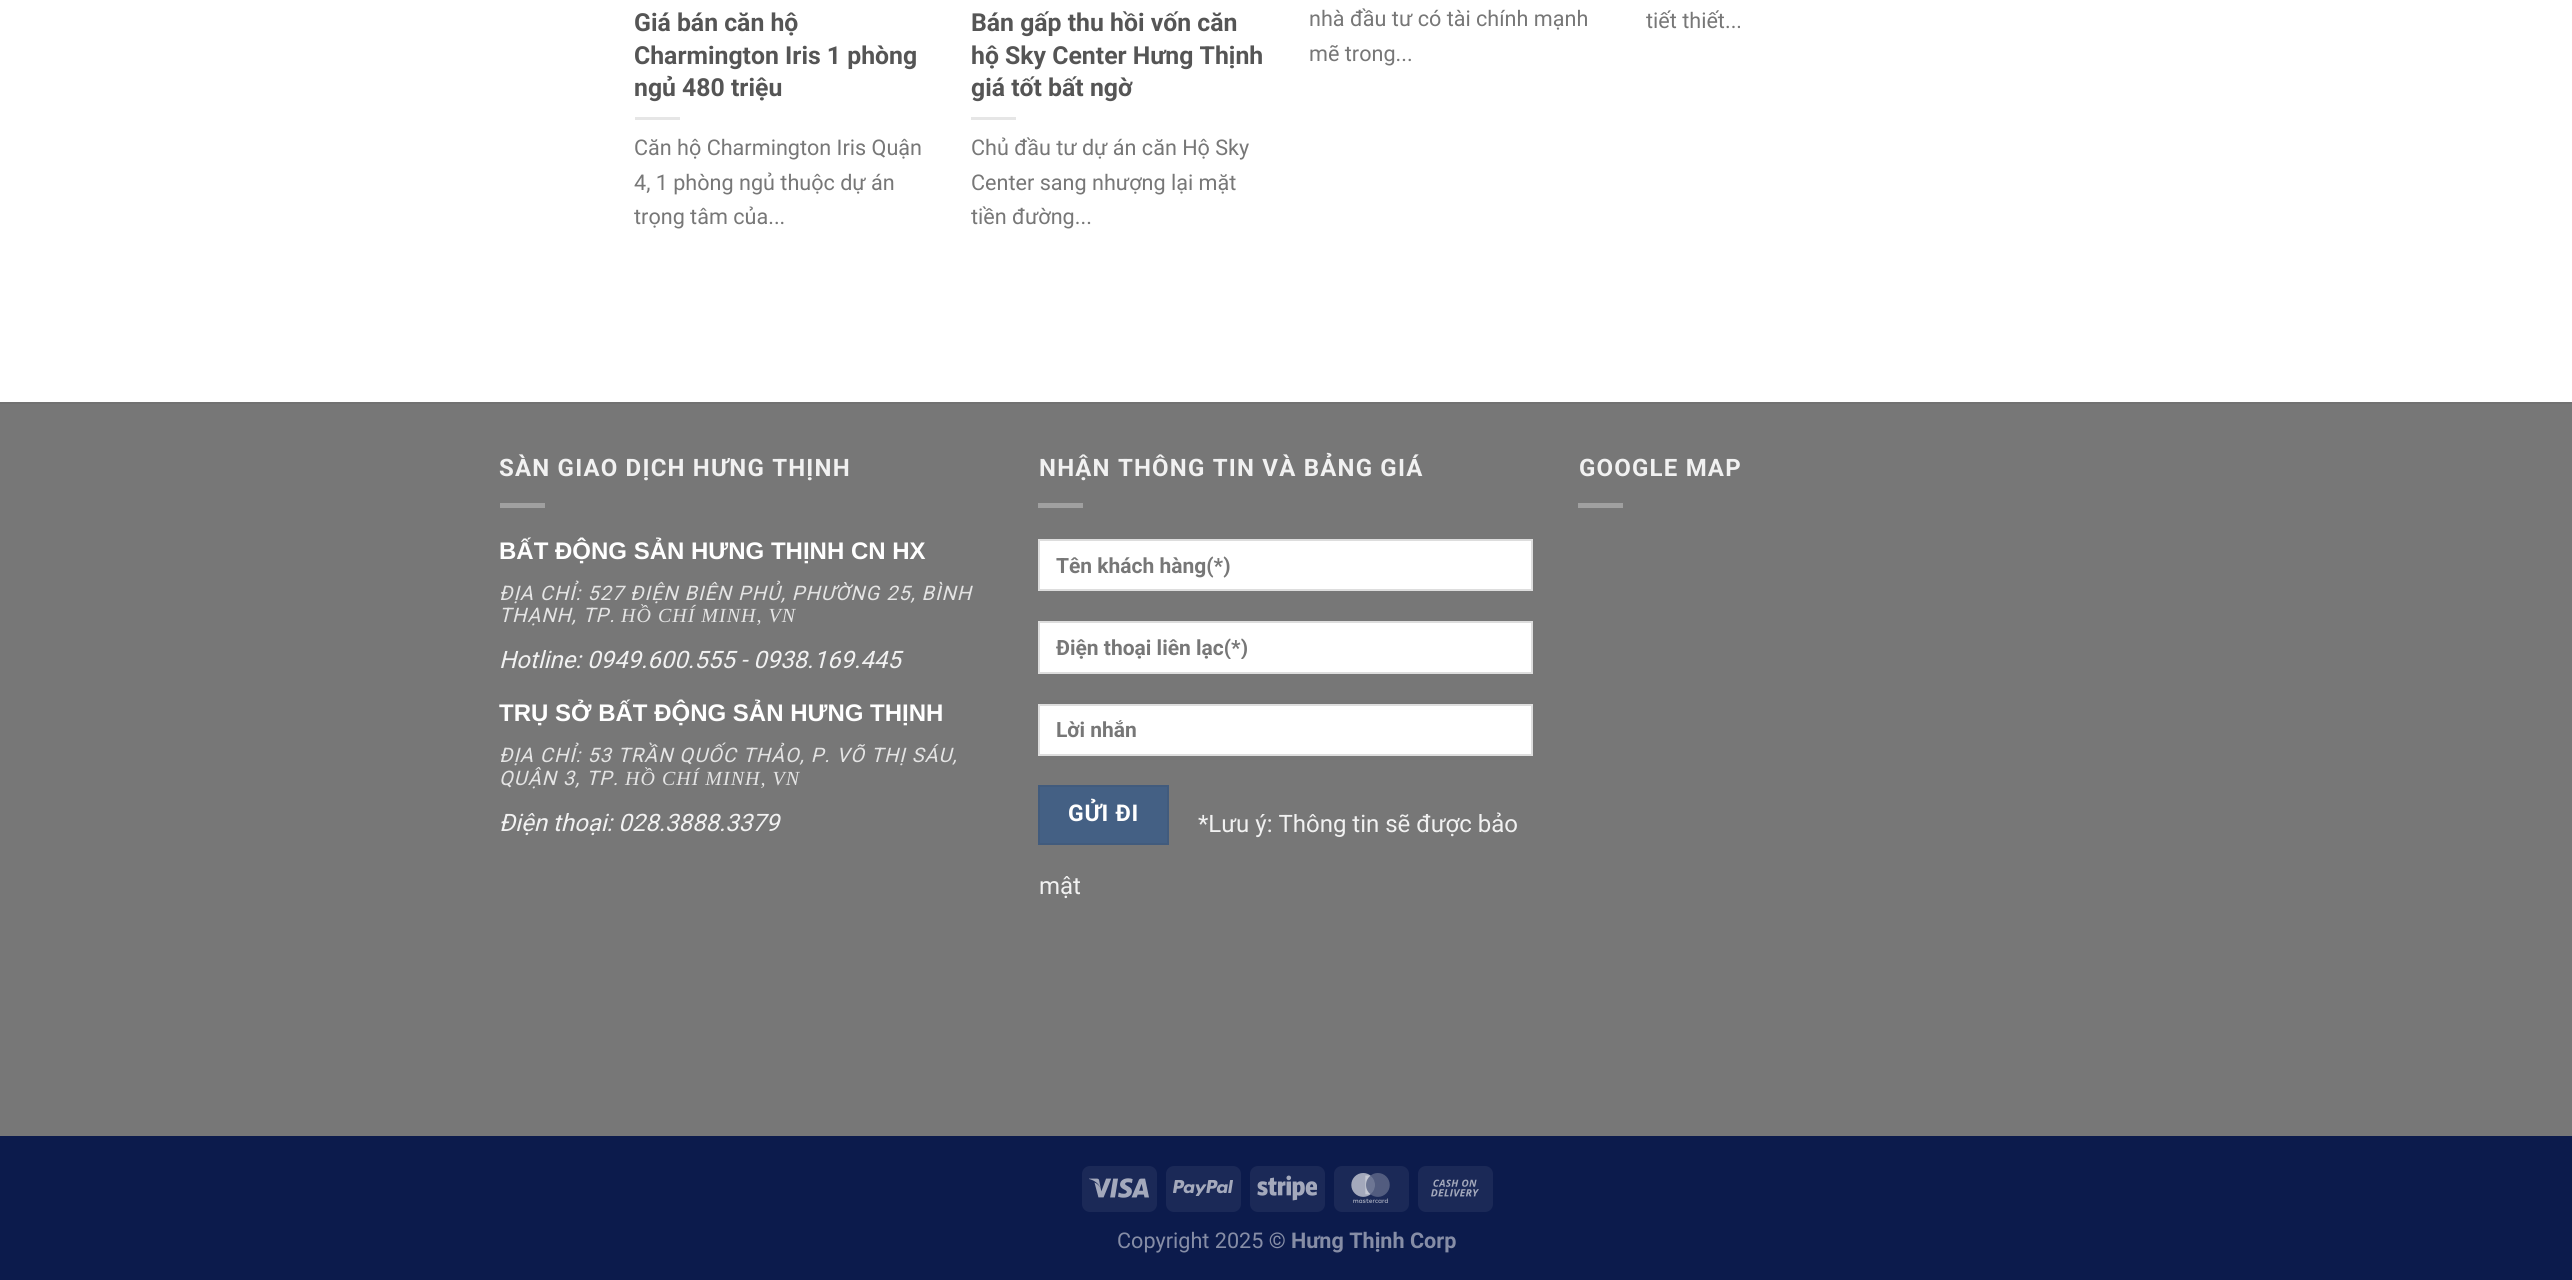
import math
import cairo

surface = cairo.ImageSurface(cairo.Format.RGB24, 2572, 1280)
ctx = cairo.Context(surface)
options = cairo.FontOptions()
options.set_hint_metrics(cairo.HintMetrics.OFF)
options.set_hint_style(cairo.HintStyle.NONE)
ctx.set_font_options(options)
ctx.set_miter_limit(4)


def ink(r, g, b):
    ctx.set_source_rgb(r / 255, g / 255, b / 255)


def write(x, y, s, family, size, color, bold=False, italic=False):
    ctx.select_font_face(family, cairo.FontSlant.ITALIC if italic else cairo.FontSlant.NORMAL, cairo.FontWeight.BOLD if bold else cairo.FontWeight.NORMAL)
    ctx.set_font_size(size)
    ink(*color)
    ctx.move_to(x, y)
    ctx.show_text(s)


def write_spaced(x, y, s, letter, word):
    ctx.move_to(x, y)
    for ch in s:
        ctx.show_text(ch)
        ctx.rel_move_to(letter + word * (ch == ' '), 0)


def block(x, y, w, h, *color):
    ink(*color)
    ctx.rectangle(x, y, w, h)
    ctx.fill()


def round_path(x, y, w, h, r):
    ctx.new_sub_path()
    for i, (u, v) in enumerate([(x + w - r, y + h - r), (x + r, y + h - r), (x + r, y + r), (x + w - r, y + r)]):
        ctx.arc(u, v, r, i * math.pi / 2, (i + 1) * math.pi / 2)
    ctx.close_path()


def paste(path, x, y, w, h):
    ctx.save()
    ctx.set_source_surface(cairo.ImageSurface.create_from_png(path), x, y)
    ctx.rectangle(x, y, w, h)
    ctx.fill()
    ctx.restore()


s1 = dict(family="Roboto", size=24.8, color=(85, 85, 85), bold=True)
s2 = dict(family="Roboto", size=21.6, color=(119, 119, 119))
s3 = dict(family="Liberation Sans", size=24, color=(255, 255, 255), bold=True)
s4 = dict(family="Roboto", size=24, color=(241, 241, 241), italic=True)
s5 = dict(family="Roboto", size=21, color=(119, 119, 119), bold=True)
s6 = dict(family="Roboto", size=24, color=(241, 241, 241))
s7 = dict(family="Roboto", size=21.6, color=(134, 141, 166))
s8 = dict(family="Roboto", size=21.6, color=(134, 141, 166), bold=True)

ink(255, 255, 255)
ctx.paint()
write(634, 31, "Giá bán căn hộ", **s1)
write(634, 64, "Charmington Iris 1 phòng", **s1)
write(634, 96, "ngủ 480 triệu", **s1)
block(635, 117, 45, 3, 230, 230, 230)
write(634, 155, "Căn hộ Charmington Iris Quận", **s2)
write(634, 190, "4, 1 phòng ngủ thuộc dự án", **s2)
write(634, 224, "trọng tâm của...", **s2)
write(971, 31, "Bán gấp thu hồi vốn căn", **s1)
write(971, 64, "hộ Sky Center Hưng Thịnh", **s1)
write(971, 96, "giá tốt bất ngờ", **s1)
block(971, 117, 45, 3, 230, 230, 230)
write(971, 155, "Chủ đầu tư dự án căn Hộ Sky", **s2)
write(971, 190, "Center sang nhượng lại mặt", **s2)
write(971, 224, "tiền đường...", **s2)
write(1309, 26, "nhà đầu tư có tài chính mạnh", **s2)
write(1309, 61, "mẽ trong...", **s2)
write(1646, 28, "tiết thiết...", **s2)
block(0, 404, 2572, 732, 119, 119, 119)
block(0, 402, 2572, 2, 113, 113, 113)
ctx.select_font_face("Roboto", cairo.FontSlant.NORMAL, cairo.FontWeight.BOLD)
ctx.set_font_size(24)
ink(241, 241, 241)
write_spaced(499, 476, "SÀN GIAO DỊCH HƯNG THỊNH", 1.2, 0)
block(500, 503, 45, 5, 160, 160, 160)
write(499, 559, "BẤT ĐỘNG SẢN HƯNG THỊNH CN HX", **s3)
ctx.select_font_face("Roboto", cairo.FontSlant.ITALIC)
ctx.set_font_size(20)
ink(228, 228, 228)
write_spaced(499, 600, "ĐỊA CHỈ: 527 ĐIỆN BIÊN PHỦ, PHƯỜNG 25, BÌNH", 1, 0)
write_spaced(499, 622, "THẠNH, TP.", 1, 0)
ctx.select_font_face("Liberation Serif", cairo.FontSlant.ITALIC)
write_spaced(621, 622, "HỒ CHÍ MINH, VN", 1, 0)
write(499, 668, "Hotline: 0949.600.555 - 0938.169.445", **s4)
write(499, 721, "TRỤ SỞ BẤT ĐỘNG SẢN HƯNG THỊNH", **s3)
ctx.select_font_face("Roboto", cairo.FontSlant.ITALIC)
ctx.set_font_size(20)
ink(228, 228, 228)
write_spaced(499, 762, "ĐỊA CHỈ: 53 TRẦN QUỐC THẢO, P. VÕ THỊ SÁU,", 1, 0)
write_spaced(499, 785, "QUẬN 3, TP.", 1, 0)
ctx.select_font_face("Liberation Serif", cairo.FontSlant.ITALIC)
write_spaced(625, 785, "HỒ CHÍ MINH, VN", 1, 0)
write(499, 831, "Điện thoại: 028.3888.3379", **s4)
ctx.select_font_face("Roboto", cairo.FontSlant.NORMAL, cairo.FontWeight.BOLD)
write_spaced(1039, 476, "NHẬN THÔNG TIN VÀ BẢNG GIÁ", 1.2, 0)
block(1038, 503, 45, 5, 160, 160, 160)
ink(255, 255, 255)
ctx.rectangle(1039, 540, 493, 50)
ctx.fill_preserve()
ink(221, 221, 221)
ctx.stroke()
write(1056, 573, "Tên khách hàng(*)", **s5)
ink(255, 255, 255)
ctx.rectangle(1039, 622, 493, 51)
ctx.fill_preserve()
ink(221, 221, 221)
ctx.stroke()
ctx.save()
ctx.rectangle(1056, 635, 461, 24)
ctx.clip()
write(1056, 655, "Điện thoại liên lạc(*)", **s5)
ctx.restore()
ink(255, 255, 255)
ctx.rectangle(1039, 705, 493, 50)
ctx.fill_preserve()
ink(221, 221, 221)
ctx.stroke()
write(1056, 737, "Lời nhắn", **s5)
ink(68, 96, 132)
ctx.rectangle(1039, 786, 129, 58)
ctx.fill_preserve()
ink(65, 91, 125)
ctx.stroke()
ctx.set_font_size(23)
ink(255, 255, 255)
write_spaced(1068, 821, "GỬI ĐI", 0.75, 0)
write(1198, 832, "*Lưu ý: Thông tin sẽ được bảo", **s6)
write(1039, 894, "mật", **s6)
ctx.select_font_face("Roboto", cairo.FontSlant.NORMAL, cairo.FontWeight.BOLD)
write_spaced(1579, 476, "GOOGLE MAP", 1.2, 0)
block(1578, 503, 45, 5, 160, 160, 160)
block(0, 1136, 2572, 144, 12, 27, 76)
ink(27, 41, 87)
round_path(1082, 1166, 75, 46, 8)
ctx.fill()
paste("pic1.png", 1089, 1178, 60, 20)
round_path(1166, 1166, 75, 46, 8)
ctx.fill()
paste("pic2.png", 1173, 1180, 60, 16)
round_path(1250, 1166, 75, 46, 8)
ctx.fill()
paste("pic3.png", 1257, 1175, 60, 26)
round_path(1334, 1166, 75, 46, 8)
ctx.fill()
paste("pic4.png", 1351, 1173, 39, 30)
round_path(1418, 1166, 75, 46, 8)
ctx.fill()
paste("pic5.png", 1431, 1179, 48, 18)
write(1117, 1248, "Copyright 2025 ©", **s7)
write(1291, 1248, "Hưng Thịnh Corp", **s8)
surface.write_to_png("screenshot.png")
